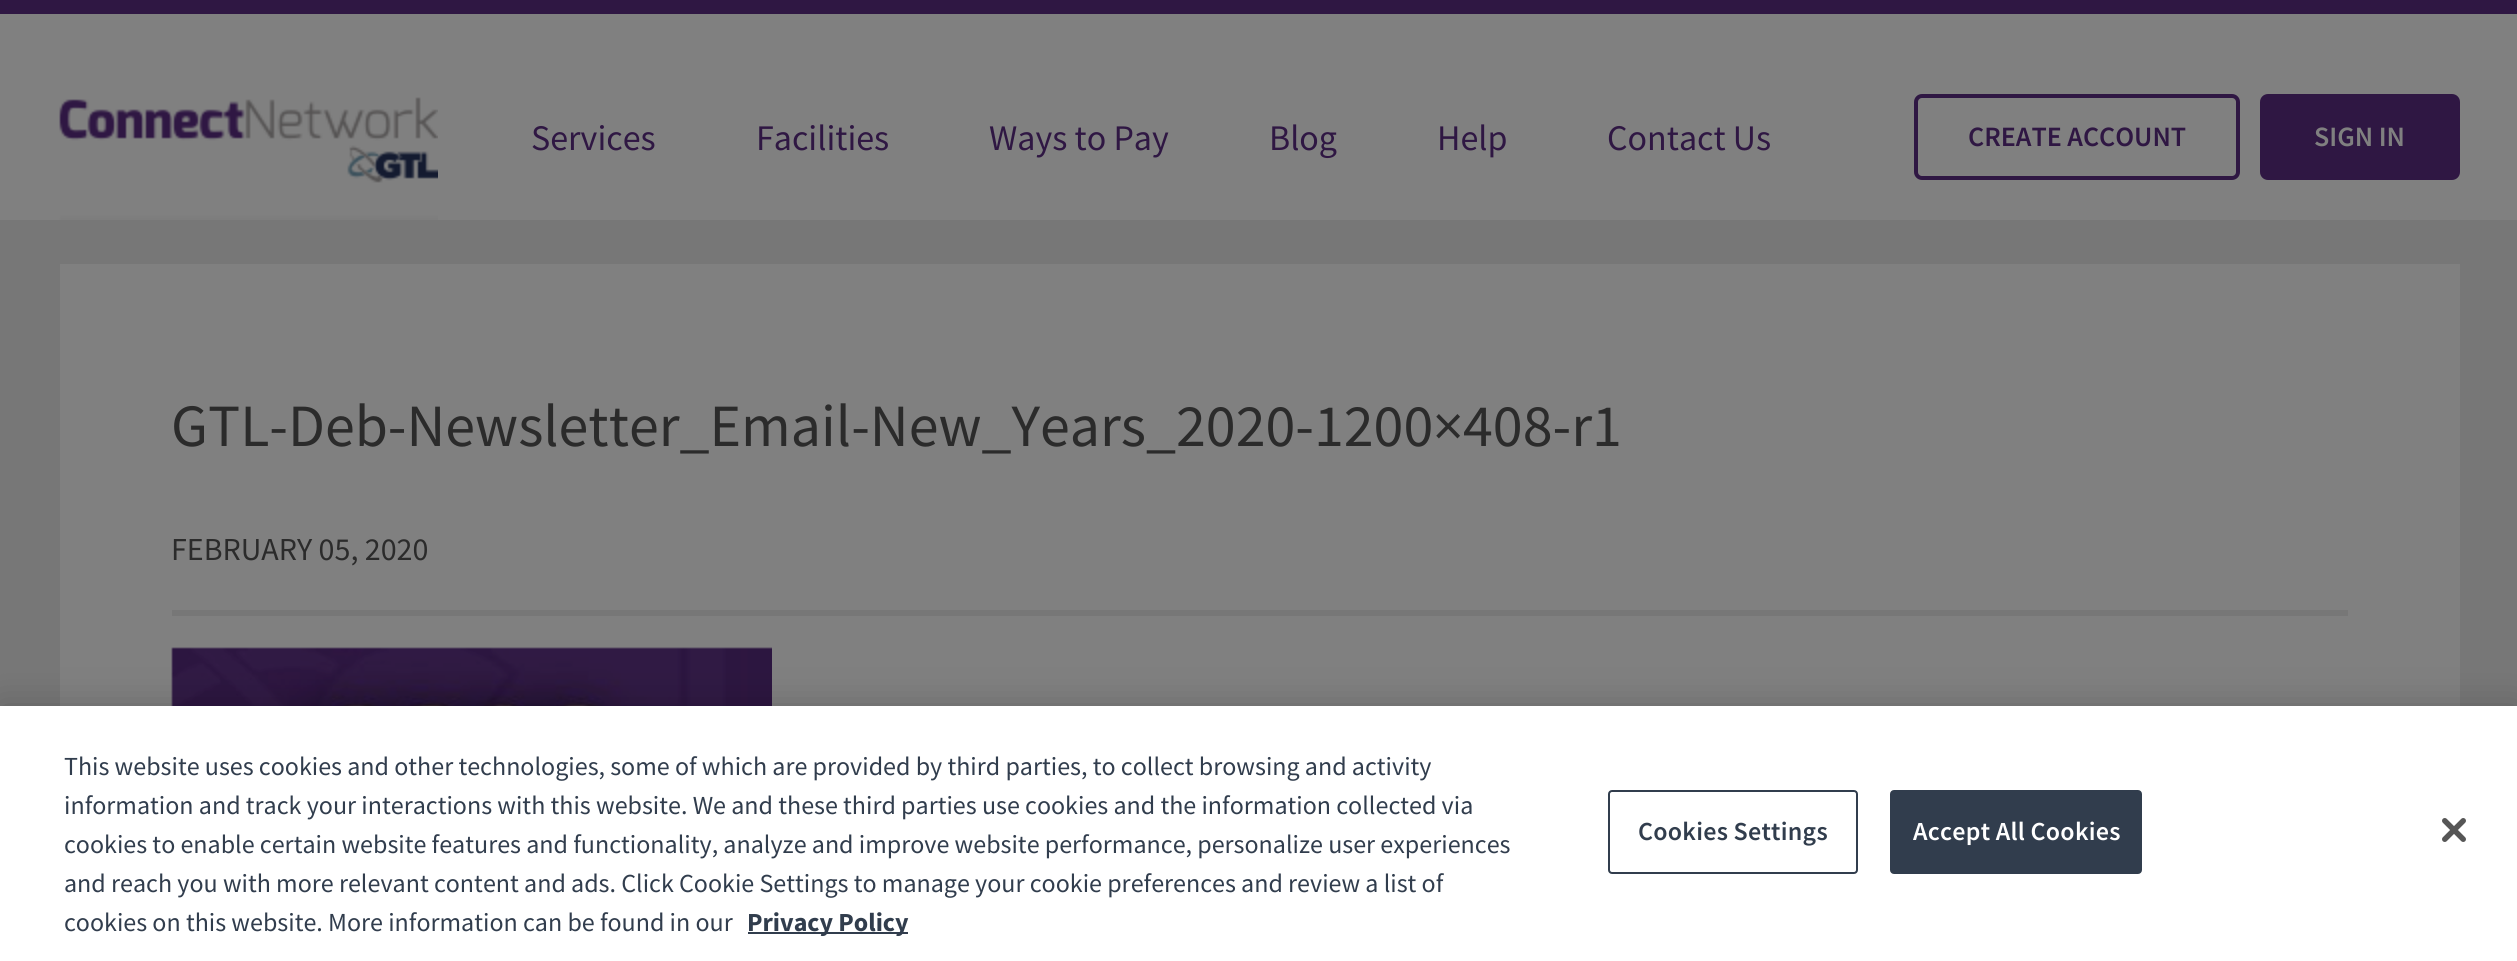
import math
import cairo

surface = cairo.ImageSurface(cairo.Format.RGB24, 2517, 961)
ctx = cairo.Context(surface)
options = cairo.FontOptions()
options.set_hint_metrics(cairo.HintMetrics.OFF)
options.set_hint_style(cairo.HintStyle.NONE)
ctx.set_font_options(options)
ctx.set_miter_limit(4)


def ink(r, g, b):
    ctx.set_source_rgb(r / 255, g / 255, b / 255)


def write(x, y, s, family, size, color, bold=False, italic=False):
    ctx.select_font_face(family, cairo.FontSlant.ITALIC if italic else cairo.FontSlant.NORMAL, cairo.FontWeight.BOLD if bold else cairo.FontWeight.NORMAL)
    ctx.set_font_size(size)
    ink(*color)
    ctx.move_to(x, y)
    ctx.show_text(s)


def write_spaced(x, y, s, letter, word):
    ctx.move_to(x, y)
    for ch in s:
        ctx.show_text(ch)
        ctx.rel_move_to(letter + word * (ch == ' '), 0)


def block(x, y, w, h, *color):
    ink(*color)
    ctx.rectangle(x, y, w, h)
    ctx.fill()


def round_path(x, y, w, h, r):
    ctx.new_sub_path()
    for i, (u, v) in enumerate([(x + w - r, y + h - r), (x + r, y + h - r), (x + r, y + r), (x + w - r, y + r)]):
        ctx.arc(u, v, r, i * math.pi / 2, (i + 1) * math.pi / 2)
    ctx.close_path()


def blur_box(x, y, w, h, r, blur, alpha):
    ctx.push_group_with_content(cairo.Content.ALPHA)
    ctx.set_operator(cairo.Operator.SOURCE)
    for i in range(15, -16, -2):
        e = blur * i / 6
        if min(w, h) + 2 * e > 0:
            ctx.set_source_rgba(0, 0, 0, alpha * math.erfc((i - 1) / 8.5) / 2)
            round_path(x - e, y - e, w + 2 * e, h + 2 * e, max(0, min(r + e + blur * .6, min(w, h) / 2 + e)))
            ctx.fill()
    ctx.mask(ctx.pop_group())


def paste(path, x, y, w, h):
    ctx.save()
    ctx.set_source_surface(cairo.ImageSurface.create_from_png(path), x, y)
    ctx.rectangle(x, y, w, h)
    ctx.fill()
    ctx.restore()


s1 = dict(family="Source Sans Pro", size=36, color=(47, 23, 67))
s2 = dict(family="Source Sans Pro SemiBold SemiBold", size=28, color=(47, 23, 67))
s3 = dict(family="Source Sans Pro SemiBold SemiBold", size=28, color=(128, 128, 128))
s4 = dict(family="Source Sans Pro", size=60, color=(43, 43, 43))
s5 = dict(family="Source Sans Pro", size=32, color=(43, 43, 43))
s6 = dict(family="Source Sans Pro", size=26.02, color=(49, 61, 77))
s7 = dict(family="Source Sans Pro", size=26.02, color=(49, 61, 77), bold=True)

ink(119, 119, 119)
ctx.paint()
block(0, 14, 2517, 206, 128, 128, 128)
block(0, 0, 2517, 14, 47, 23, 67)
paste("pic1.png", 59, 97, 379, 123)
write(531, 150, "Services", **s1)
write(756, 150, "Facilities", **s1)
write(989, 150, "Ways to Pay", **s1)
write(1269, 150, "Blog", **s1)
write(1437, 150, "Help", **s1)
write(1607, 150, "Contact Us", **s1)
round_path(1916, 96, 322, 82, 6)
ctx.set_line_width(4)
ctx.stroke()
write(1968, 146, "CREATE ACCOUNT", **s2)
round_path(2262, 96, 196, 82, 6)
ctx.fill_preserve()
ctx.stroke()
write(2314, 146, "SIGN IN", **s3)
block(60, 264, 2400, 442, 128, 128, 128)
write(171, 446, "GTL-Deb-Newsletter_Email-New_Years_2020-1200×408-r1", **s4)
write(171, 560, "FEBRUARY 05, 2020", **s5)
block(172, 610, 2176, 6, 119, 119, 119)
paste("pic2.png", 171, 647, 601, 59)
ink(0, 0, 0)
blur_box(0, 706, 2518, 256, 0, 18, 0.2)
block(0, 706, 2517, 255, 255, 255, 255)
write(64, 775, "This website uses cookies and other technologies, some of which are provided by third parties, to collect browsing and activity", **s6)
write(64, 814, "information and track your interactions with this website. We and these third parties use cookies and the information collected via", **s6)
write(64, 853, "cookies to enable certain website features and functionality, analyze and improve website performance, personalize user experiences", **s6)
write(64, 892, "and reach you with more relevant content and ads. Click Cookie Settings to manage your cookie preferences and review a list of", **s6)
write(64, 931, "cookies on this website. More information can be found in our", **s6)
block(748, 932, 160, 2, 49, 61, 77)
write(747, 931, "Privacy Policy", **s7)
round_path(1609, 791, 248, 82, 3)
ctx.set_line_width(2)
ctx.stroke()
ctx.select_font_face("Source Sans Pro SemiBold SemiBold")
write_spaced(1638, 840, "Cookies Settings", 0.25, 0)
round_path(1891, 791, 250, 82, 3)
ctx.fill_preserve()
ctx.stroke()
ink(255, 255, 255)
write_spaced(1913, 840, "Accept All Cookies", 0.25, 0)
paste("pic3.png", 2442, 818, 24, 24)
surface.write_to_png("screenshot.png")
